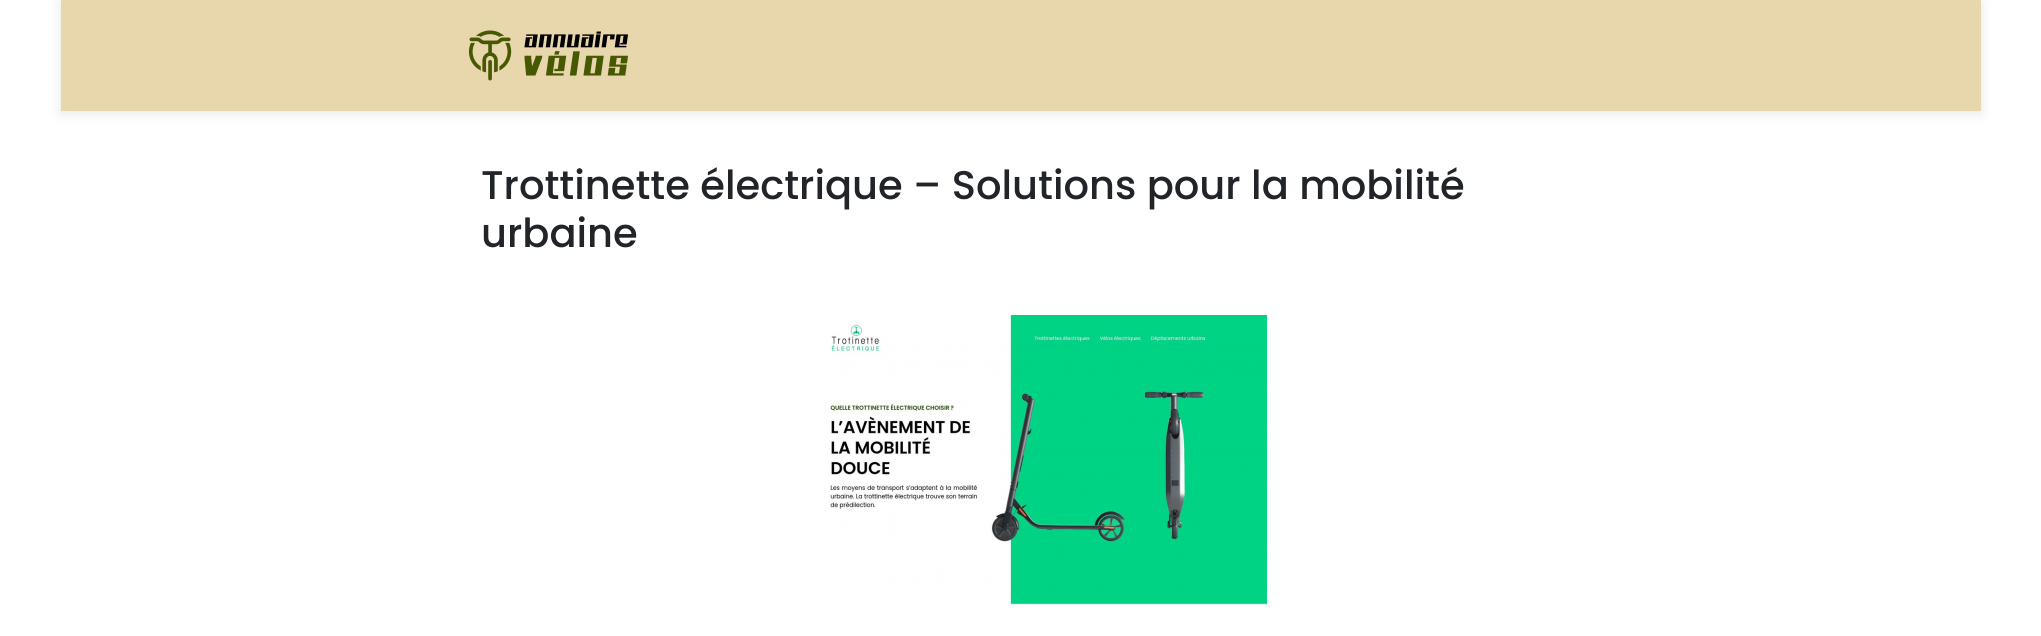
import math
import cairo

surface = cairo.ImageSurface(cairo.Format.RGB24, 2041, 636)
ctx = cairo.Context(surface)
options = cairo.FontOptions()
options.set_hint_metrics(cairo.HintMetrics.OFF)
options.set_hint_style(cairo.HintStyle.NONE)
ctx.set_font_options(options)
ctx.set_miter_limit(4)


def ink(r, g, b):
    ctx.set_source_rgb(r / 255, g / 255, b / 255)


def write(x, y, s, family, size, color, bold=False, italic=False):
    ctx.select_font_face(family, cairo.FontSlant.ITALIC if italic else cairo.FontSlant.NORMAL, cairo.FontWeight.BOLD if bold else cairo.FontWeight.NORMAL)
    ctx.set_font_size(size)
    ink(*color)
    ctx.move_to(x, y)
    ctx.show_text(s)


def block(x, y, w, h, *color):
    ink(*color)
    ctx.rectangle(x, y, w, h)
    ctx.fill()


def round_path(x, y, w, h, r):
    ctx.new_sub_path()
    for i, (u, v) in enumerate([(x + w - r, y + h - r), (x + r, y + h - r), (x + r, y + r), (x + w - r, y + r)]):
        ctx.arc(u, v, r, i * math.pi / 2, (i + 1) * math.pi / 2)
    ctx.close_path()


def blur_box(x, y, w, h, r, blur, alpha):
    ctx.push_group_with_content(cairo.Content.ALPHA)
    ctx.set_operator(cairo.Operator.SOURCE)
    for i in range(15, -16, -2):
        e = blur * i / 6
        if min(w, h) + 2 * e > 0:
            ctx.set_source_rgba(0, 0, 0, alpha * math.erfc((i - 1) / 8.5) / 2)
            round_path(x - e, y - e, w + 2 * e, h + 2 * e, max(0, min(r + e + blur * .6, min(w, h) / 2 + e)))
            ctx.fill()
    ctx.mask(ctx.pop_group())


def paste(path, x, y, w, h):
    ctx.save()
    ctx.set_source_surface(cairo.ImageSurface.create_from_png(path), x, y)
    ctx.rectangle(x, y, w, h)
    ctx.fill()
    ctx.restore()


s1 = dict(family="Poppins Medium", size=40, color=(33, 37, 41))

ink(255, 255, 255)
ctx.paint()
ink(0, 0, 0)
blur_box(61, 2, 1920, 111, 0, 6.5, 0.1)
block(61, 0, 1920, 111, 232, 214, 173)
paste("pic1.png", 468, 30, 160, 51)
write(481, 199, "Trottinette électrique – Solutions pour la mobilité", **s1)
write(481, 247, "urbaine", **s1)
paste("pic2.png", 829, 315, 438, 290)
surface.write_to_png("screenshot.png")
